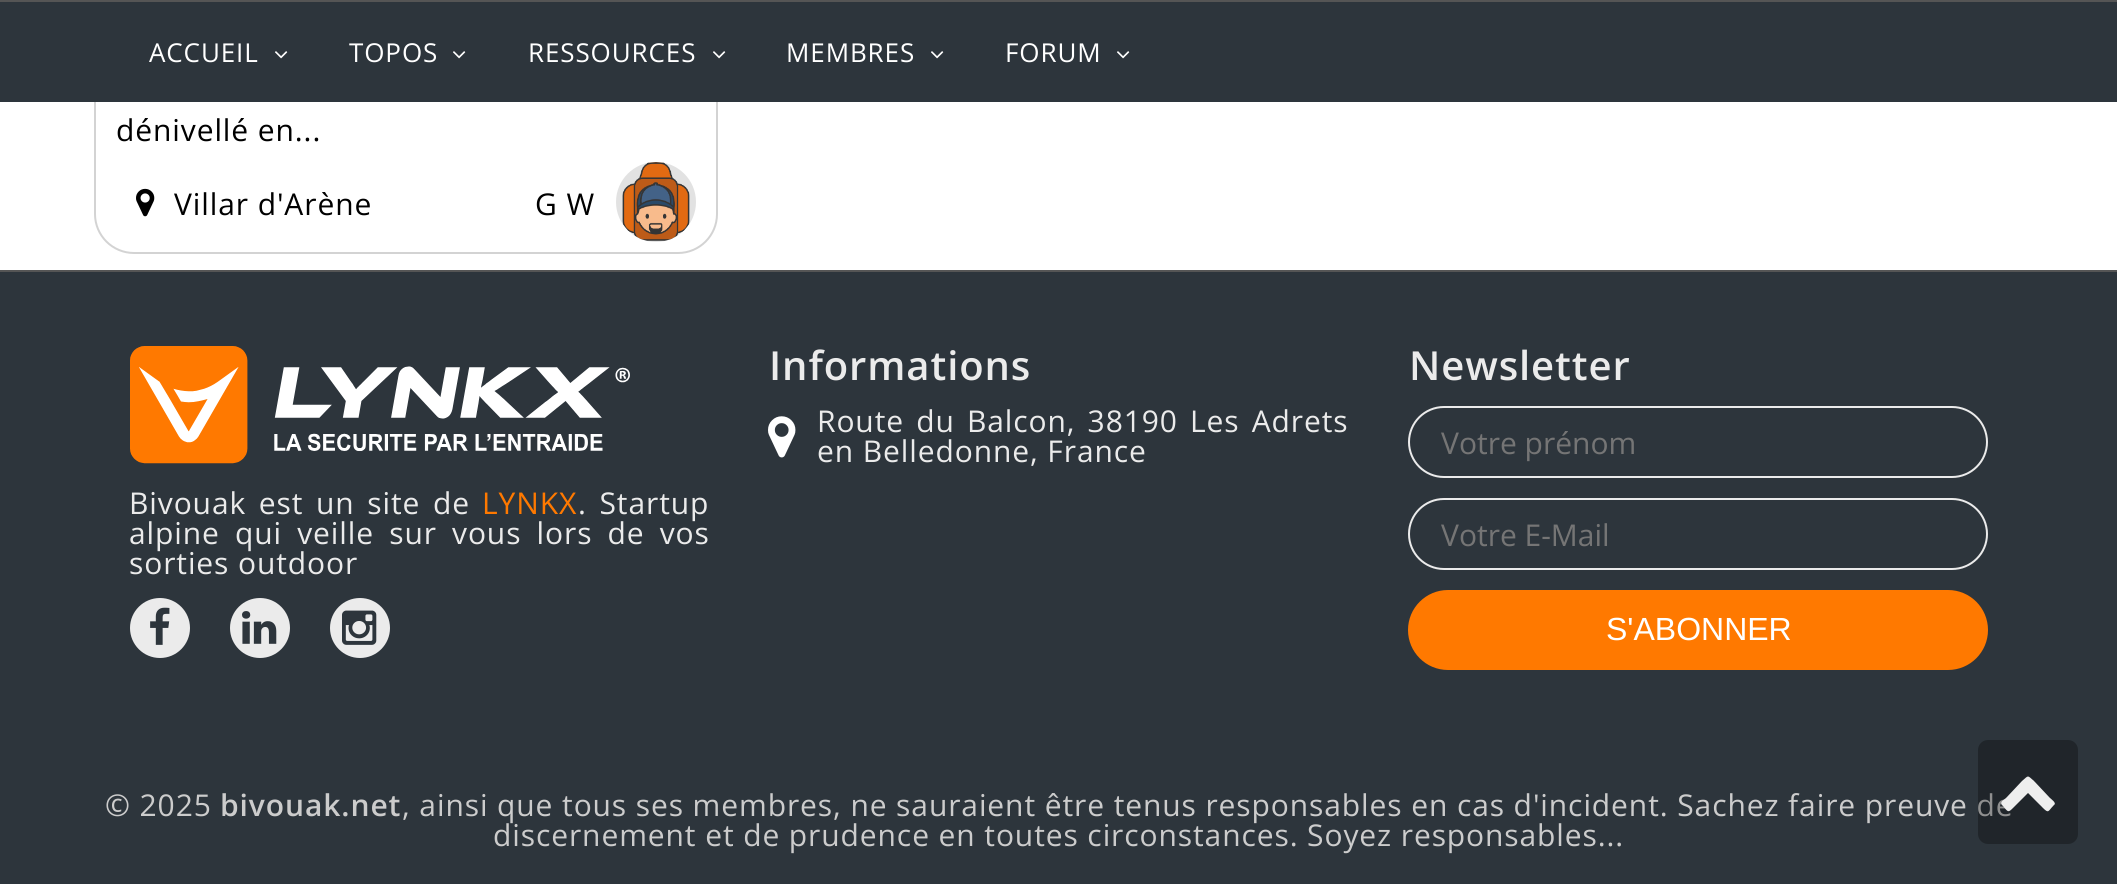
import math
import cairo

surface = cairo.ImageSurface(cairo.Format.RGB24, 2117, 884)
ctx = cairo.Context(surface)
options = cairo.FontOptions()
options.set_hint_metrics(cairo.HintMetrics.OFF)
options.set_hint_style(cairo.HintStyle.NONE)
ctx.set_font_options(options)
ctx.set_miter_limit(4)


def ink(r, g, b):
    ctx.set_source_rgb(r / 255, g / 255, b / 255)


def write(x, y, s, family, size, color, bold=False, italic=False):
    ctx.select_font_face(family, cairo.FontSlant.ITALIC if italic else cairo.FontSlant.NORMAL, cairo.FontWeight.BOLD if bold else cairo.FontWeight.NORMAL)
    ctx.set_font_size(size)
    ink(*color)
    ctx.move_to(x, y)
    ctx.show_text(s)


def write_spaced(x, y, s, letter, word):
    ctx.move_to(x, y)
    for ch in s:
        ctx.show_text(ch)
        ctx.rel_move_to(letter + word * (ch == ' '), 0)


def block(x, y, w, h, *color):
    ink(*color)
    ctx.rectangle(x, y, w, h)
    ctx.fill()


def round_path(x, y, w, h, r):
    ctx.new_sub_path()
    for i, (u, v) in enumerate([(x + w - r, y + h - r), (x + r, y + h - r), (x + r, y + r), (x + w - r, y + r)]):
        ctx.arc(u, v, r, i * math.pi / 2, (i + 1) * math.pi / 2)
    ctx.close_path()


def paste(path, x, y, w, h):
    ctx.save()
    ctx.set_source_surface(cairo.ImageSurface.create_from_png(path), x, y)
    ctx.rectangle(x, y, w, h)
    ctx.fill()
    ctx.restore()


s1 = dict(family="Open Sans", size=30, color=(117, 117, 117))
s2 = dict(family="Liberation Sans", size=32, color=(255, 255, 255))

ink(255, 255, 255)
ctx.paint()
round_path(95, -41, 622, 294, 39)
ink(211, 211, 211)
ctx.stroke()
block(0, 2, 2117, 100, 45, 53, 60)
block(0, 0, 2117, 2, 85, 85, 85)
ctx.select_font_face("Open Sans")
ctx.set_font_size(26)
ink(255, 255, 255)
write_spaced(149, 62, "ACCUEIL", 0.9, 0)
paste("pic1.png", 275, 51, 13, 8)
write_spaced(349, 62, "TOPOS", 0.9, 0)
paste("pic1.png", 453, 51, 13, 8)
write_spaced(528, 62, "RESSOURCES", 0.9, 0)
paste("pic1.png", 713, 51, 13, 8)
write_spaced(786, 62, "MEMBRES", 0.9, 0)
paste("pic1.png", 931, 51, 13, 8)
write_spaced(1005, 62, "FORUM", 0.9, 0)
paste("pic1.png", 1117, 51, 13, 8)
ctx.set_font_size(30)
ink(0, 0, 0)
write_spaced(116, 141, "dénivellé en...", 0.9, 0)
paste("pic2.png", 136, 188, 19, 29)
write_spaced(174, 215, "Villar d'Arène", 0.9, 0)
write_spaced(535, 215, "G W", 0.9, 0)
ink(226, 226, 226)
ctx.new_path()
ctx.arc(656, 202, 40, 0, 2 * math.pi)
ctx.fill()
paste("pic3.png", 622, 162, 68, 79)
block(0, 272, 2117, 612, 45, 53, 60)
block(0, 270, 2117, 2, 85, 85, 85)
paste("pic4.png", 130, 346, 500, 118)
ink(235, 235, 235)
write_spaced(129, 514, "Bivouak est un site de", 0.9, 4)
ink(255, 121, 0)
write_spaced(482, 514, "LYNKX", 0.9, 0)
ink(235, 235, 235)
write_spaced(578, 514, ". Startup", 0.9, 4)
write_spaced(129, 544, "alpine qui veille sur vous lors de vos", 0.9, 6.5)
write_spaced(129, 574, "sorties outdoor", 0.9, 0)
ctx.new_path()
ctx.arc(160, 628, 30, 0, 2 * math.pi)
ctx.fill()
paste("pic5.png", 150, 607, 20, 38)
ctx.arc(260, 628, 30, 0, 2 * math.pi)
ctx.fill()
paste("pic6.png", 242, 611, 35, 33)
ctx.arc(360, 628, 30, 0, 2 * math.pi)
ctx.fill()
paste("pic7.png", 342, 610, 35, 35)
ctx.select_font_face("Open Sans SemiBold")
ctx.set_font_size(40)
write_spaced(769, 380, "Informations", 0.9, 0)
paste("pic8.png", 768, 416, 28, 42)
ctx.select_font_face("Open Sans")
ctx.set_font_size(30)
write_spaced(817, 432, "Route du Balcon, 38190 Les Adrets", 0.9, 3.5)
write_spaced(817, 462, "en Belledonne, France", 0.9, 0)
ctx.select_font_face("Open Sans SemiBold")
ctx.set_font_size(40)
write_spaced(1409, 380, "Newsletter", 0.9, 0)
round_path(1409, 407, 578, 70, 35)
ctx.stroke()
write(1441, 454, "Votre prénom", **s1)
round_path(1409, 499, 578, 70, 35)
ink(235, 235, 235)
ctx.stroke()
write(1441, 546, "Votre E-Mail", **s1)
ink(255, 121, 0)
round_path(1408, 590, 580, 80, 40)
ctx.fill()
write(1606, 640, "S'ABONNER", **s2)
ctx.select_font_face("Open Sans")
ctx.set_font_size(30)
ink(204, 204, 204)
write_spaced(105, 816, "© 2025", 0.9, 0)
ctx.select_font_face("Open Sans SemiBold")
write_spaced(220, 816, "bivouak.net", 0.9, 0)
ctx.select_font_face("Open Sans")
write_spaced(402, 816, ", ainsi que tous ses membres, ne sauraient être tenus responsables en cas d'incident. Sachez faire preuve de", 0.9, 0)
write_spaced(493, 846, "discernement et de prudence en toutes circonstances. Soyez responsables...", 0.9, 0)
ctx.set_source_rgba(0, 0, 0, 0.3)
round_path(1978, 740, 100, 104, 10)
ctx.fill()
ink(238, 238, 238)
ctx.new_path()
ctx.move_to(2054, 805)
ctx.curve_to(2048, 811, 2049, 814, 2043, 808)
ctx.line_to(2028, 793)
ctx.line_to(2013, 808)
ctx.curve_to(2008, 813, 2008, 812, 2003, 806)
ctx.curve_to(1999, 803, 2002, 801, 2006, 798)
ctx.line_to(2022, 781)
ctx.curve_to(2029, 775, 2027, 775, 2034, 781)
ctx.line_to(2050, 798)
ctx.curve_to(2051, 799, 2057, 803, 2054, 805)
ctx.close_path()
ctx.fill()
surface.write_to_png("screenshot.png")
